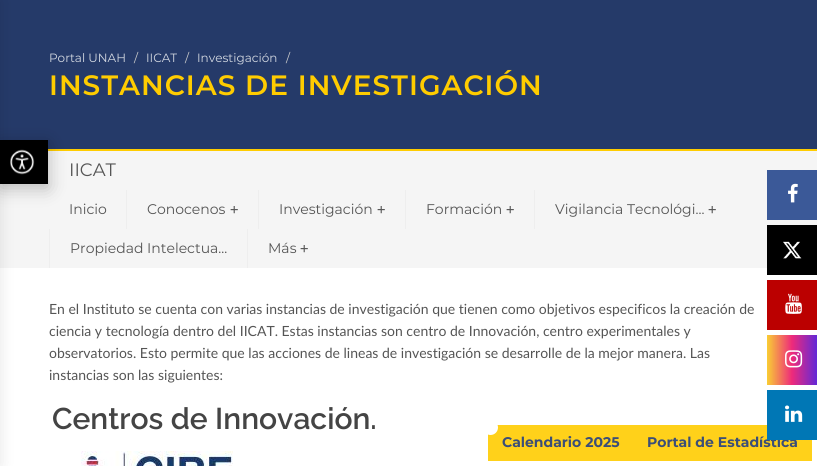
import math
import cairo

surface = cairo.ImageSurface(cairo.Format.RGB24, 817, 466)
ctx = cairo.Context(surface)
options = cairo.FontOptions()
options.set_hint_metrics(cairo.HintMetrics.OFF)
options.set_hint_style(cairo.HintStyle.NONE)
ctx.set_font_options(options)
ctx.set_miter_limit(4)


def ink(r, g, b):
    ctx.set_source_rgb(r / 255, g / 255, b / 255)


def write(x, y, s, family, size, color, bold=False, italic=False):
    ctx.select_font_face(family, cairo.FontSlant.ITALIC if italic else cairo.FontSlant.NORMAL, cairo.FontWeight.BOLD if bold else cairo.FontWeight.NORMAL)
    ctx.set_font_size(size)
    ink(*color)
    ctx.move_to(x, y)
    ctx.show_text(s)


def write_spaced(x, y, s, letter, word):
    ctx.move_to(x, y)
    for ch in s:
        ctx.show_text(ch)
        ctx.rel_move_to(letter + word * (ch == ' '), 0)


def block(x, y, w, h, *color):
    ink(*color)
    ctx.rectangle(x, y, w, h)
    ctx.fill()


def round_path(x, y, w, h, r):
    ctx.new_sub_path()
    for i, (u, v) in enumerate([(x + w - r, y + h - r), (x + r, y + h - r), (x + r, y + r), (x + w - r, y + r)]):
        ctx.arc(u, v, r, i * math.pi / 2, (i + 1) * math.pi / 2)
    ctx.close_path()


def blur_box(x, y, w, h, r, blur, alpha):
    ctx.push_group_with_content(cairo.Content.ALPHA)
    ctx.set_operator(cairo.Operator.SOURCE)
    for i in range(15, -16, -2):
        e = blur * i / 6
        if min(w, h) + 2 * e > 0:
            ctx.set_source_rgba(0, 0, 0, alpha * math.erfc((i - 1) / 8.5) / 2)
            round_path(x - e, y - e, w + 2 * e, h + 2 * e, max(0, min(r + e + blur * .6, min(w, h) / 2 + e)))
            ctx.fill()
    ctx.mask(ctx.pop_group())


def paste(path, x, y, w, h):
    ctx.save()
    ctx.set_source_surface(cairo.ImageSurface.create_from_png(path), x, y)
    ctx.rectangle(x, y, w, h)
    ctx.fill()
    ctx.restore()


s1 = dict(family="Montserrat", size=12, color=(211, 216, 225))
s2 = dict(family="Montserrat", size=12, color=(204, 204, 204))
s3 = dict(family="Montserrat", size=18, color=(85, 85, 85))
s4 = dict(family="Montserrat", size=14, color=(85, 85, 85))
s5 = dict(family="DejaVu Sans Mono", size=14, color=(85, 85, 85))
s6 = dict(family="Montserrat", size=14, color=(59, 78, 120), bold=True)
s7 = dict(family="Lato", size=14, color=(85, 85, 85))
s8 = dict(family="Raleway SemiBold", size=30, color=(68, 68, 68))

ink(255, 255, 255)
ctx.paint()
block(0, 0, 817, 149, 37, 58, 105)
block(0, 151, 817, 117, 245, 245, 245)
ink(0, 0, 0)
blur_box(-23, 0, 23, 466, 0, 7.5, 0.1)
block(48, 149, 769, 2, 255, 204, 0)
ink(0, 0, 0)
blur_box(0, 144, 48, 44, 0, 9, 0.25)
block(0, 140, 48, 44, 0, 0, 0)
paste("pic1.png", 10, 149, 25, 26)
write(49, 62, "Portal UNAH", **s1)
write(134, 62, "/", **s2)
write(146, 62, "IICAT", **s1)
write(185, 62, "/", **s2)
write(197, 62, "Investigación", **s1)
write(286, 62, "/", **s2)
ctx.select_font_face("Montserrat SemiBold")
ctx.set_font_size(28)
ink(255, 204, 0)
write_spaced(49, 95, "INSTANCIAS DE INVESTIGACIÓN", 1, 0)
write(69, 176, "IICAT", **s3)
write(69, 214, "Inicio", **s4)
block(126, 190, 1, 39, 238, 238, 238)
write(147, 214, "Conocenos", **s4)
write(230, 214, "+", **s5)
block(258, 190, 1, 39, 238, 238, 238)
write(279, 214, "Investigación", **s4)
write(377, 214, "+", **s5)
block(405, 190, 1, 39, 238, 238, 238)
write(426, 214, "Formación", **s4)
write(506, 214, "+", **s5)
block(534, 190, 1, 39, 238, 238, 238)
write(555, 214, "Vigilancia Tecnológi...", **s4)
write(708, 214, "+", **s5)
block(49, 229, 1, 39, 238, 238, 238)
write(70, 253, "Propiedad Intelectua...", **s4)
block(247, 229, 1, 39, 238, 238, 238)
write(268, 253, "Más", **s4)
write(300, 253, "+", **s5)
block(767, 170, 50, 50, 59, 89, 152)
paste("pic2.png", 788, 183, 10, 20)
block(767, 225, 50, 50, 0, 0, 0)
paste("pic3.png", 783, 241, 19, 18)
block(767, 280, 50, 50, 187, 0, 0)
paste("pic4.png", 785, 293, 17, 21)
gradient = cairo.LinearGradient(767, 360, 817, 360)
gradient.add_color_stop_rgba(0, 0.976, 0.808, 0.204, 1)
gradient.add_color_stop_rgba(0.5, 0.933, 0.165, 0.482, 1)
gradient.add_color_stop_rgba(1, 0.384, 0.157, 0.843, 1)
ctx.set_source(gradient)
ctx.rectangle(767, 335, 50, 50)
ctx.fill()
paste("pic5.png", 785, 350, 18, 18)
block(488, 425, 324, 36, 255, 209, 26)
write(647, 447, "Portal de Estadística", **s6)
block(767, 390, 50, 50, 0, 119, 181)
paste("pic6.png", 785, 405, 18, 17)
write(49, 314, "En el Instituto se cuenta con varias instancias de investigación que tienen como objetivos especificos la creación de", **s7)
write(49, 336, "ciencia y tecnología dentro del IICAT. Estas instancias son centro de Innovación, centro experimentales y", **s7)
write(49, 358, "observatorios. Esto permite que las acciones de lineas de investigación se desarrolle de la mejor manera. Las", **s7)
write(49, 380, "instancias son las siguientes:", **s7)
write(52, 429, "Centros de Innovación.", **s8)
paste("pic7.png", 81, 451, 152, 15)
ink(255, 255, 255)
ctx.arc(490.5, 427.5, 7.5, 0, 2 * math.pi)
ctx.fill()
write(502, 447, "Calendario 2025", **s6)
surface.write_to_png("screenshot.png")
